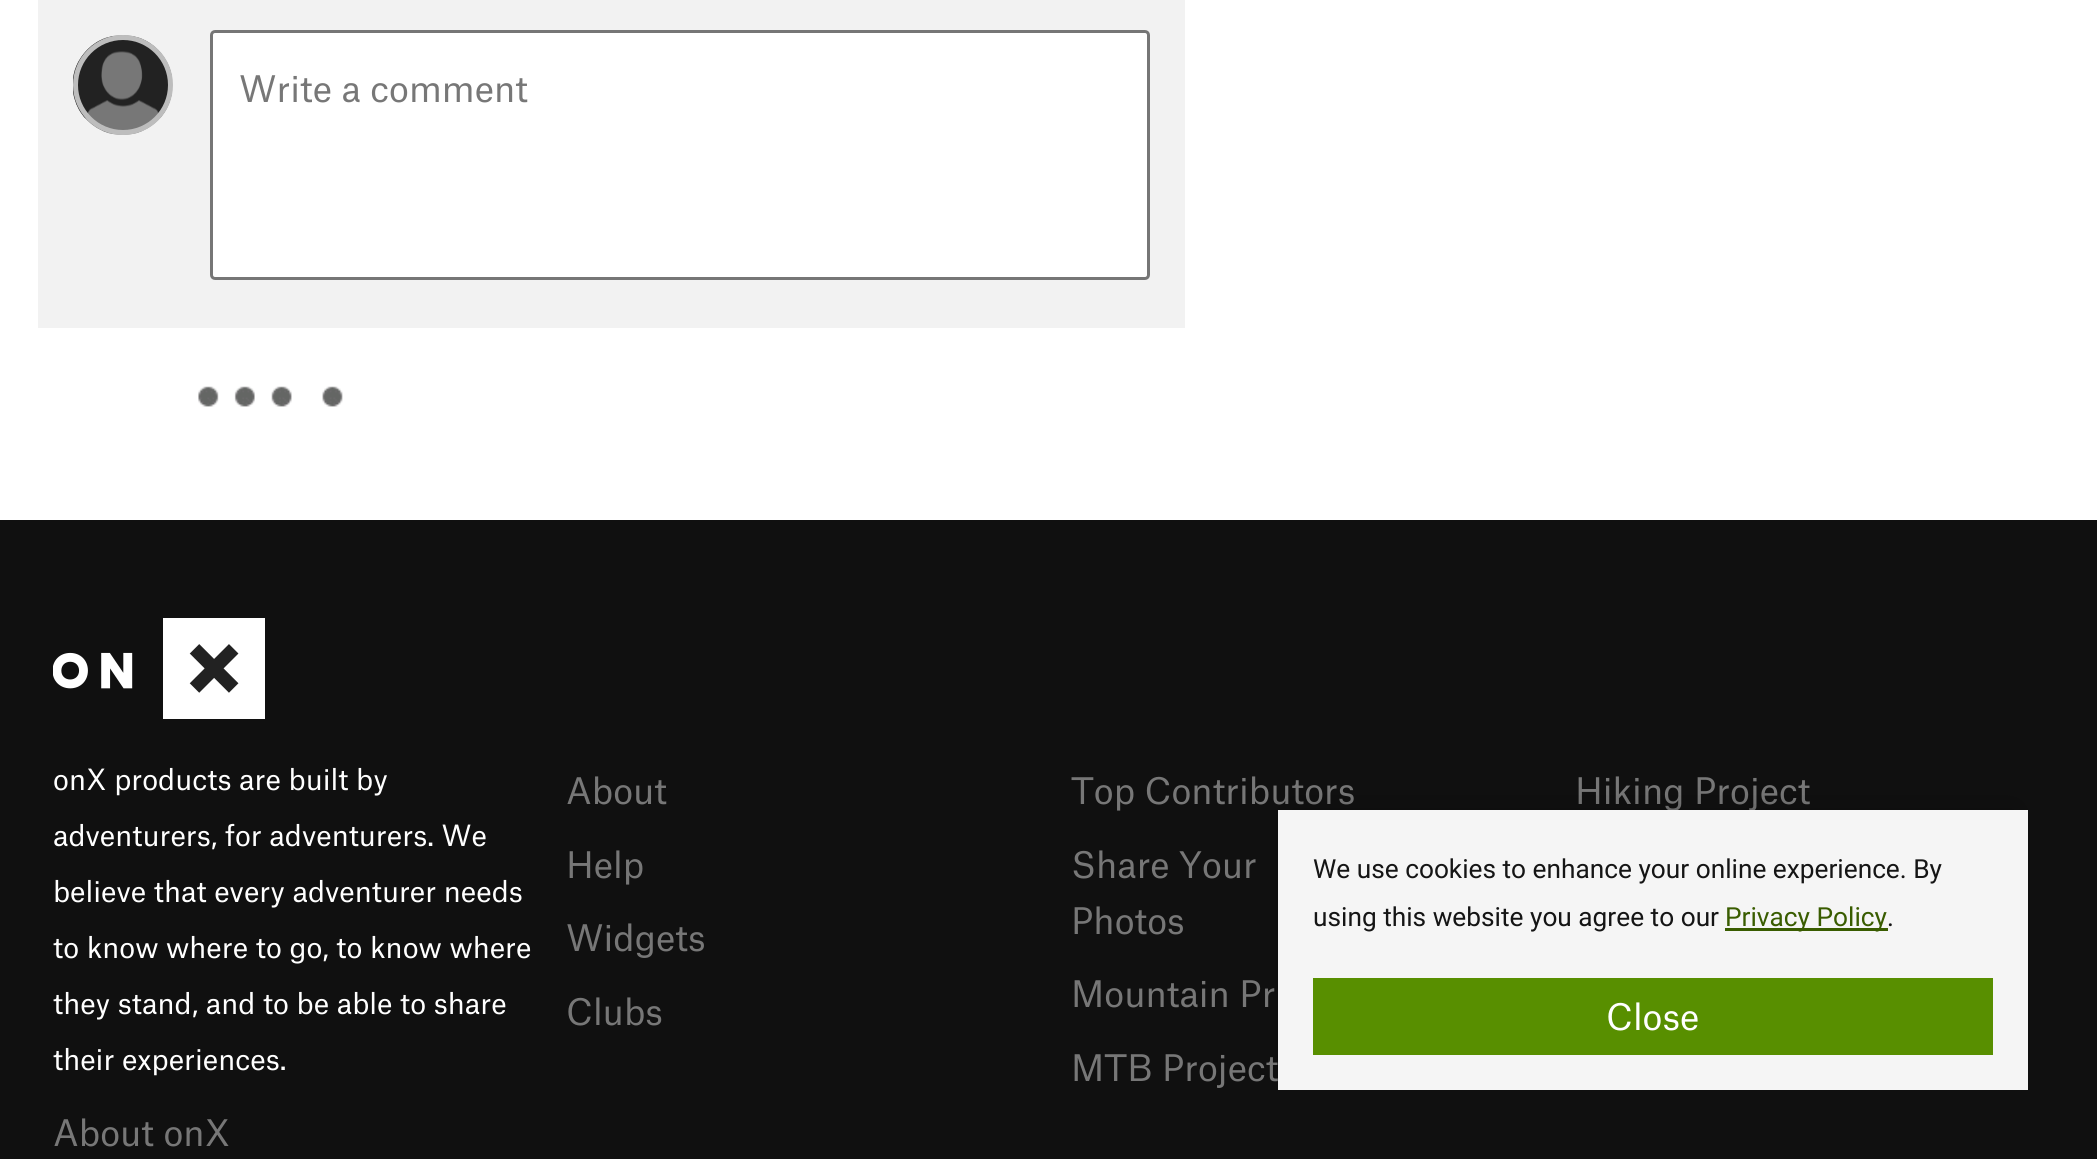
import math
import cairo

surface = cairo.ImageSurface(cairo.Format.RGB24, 2097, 1159)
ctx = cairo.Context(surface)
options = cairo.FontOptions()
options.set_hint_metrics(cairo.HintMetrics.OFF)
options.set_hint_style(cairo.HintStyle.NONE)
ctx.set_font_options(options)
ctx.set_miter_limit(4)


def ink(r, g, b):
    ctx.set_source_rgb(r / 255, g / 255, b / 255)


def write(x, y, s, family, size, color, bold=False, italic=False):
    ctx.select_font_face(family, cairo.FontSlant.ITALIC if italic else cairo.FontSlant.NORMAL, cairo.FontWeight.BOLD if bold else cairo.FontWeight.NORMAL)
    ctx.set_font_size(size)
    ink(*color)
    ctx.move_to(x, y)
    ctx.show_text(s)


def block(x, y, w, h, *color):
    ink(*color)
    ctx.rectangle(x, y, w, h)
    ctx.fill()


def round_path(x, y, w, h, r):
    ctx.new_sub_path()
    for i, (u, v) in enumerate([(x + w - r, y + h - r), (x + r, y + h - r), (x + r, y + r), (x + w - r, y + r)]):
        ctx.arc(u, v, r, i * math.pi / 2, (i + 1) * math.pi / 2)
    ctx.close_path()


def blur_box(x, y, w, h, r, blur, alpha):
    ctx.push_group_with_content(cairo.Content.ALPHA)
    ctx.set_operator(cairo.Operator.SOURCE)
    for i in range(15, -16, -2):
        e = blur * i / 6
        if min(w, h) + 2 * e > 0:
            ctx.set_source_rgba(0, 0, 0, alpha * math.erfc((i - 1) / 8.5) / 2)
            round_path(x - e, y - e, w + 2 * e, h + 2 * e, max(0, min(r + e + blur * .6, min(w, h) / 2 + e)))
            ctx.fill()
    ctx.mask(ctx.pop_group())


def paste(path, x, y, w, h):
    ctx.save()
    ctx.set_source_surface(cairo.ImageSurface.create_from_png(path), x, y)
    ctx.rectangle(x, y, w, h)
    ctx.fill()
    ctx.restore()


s1 = dict(family="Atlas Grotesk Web", size=35, color=(119, 119, 119))
s2 = dict(family="Atlas Grotesk Web", size=28, color=(255, 255, 255))
s3 = dict(family="Roboto", size=26.25, color=(21, 21, 21))
s4 = dict(family="Roboto", size=26.25, color=(57, 92, 0))
s5 = dict(family="Atlas Grotesk Web", size=35, color=(255, 255, 255))

ink(255, 255, 255)
ctx.paint()
block(38, 0, 1147, 328, 242, 242, 242)
paste("pic1.png", 73, 35, 99, 100)
ctx.arc(123, 85, 47.5, 0, 2 * math.pi)
ink(189, 189, 189)
ctx.set_line_width(5)
ctx.stroke()
ink(255, 255, 255)
round_path(211.5, 31.5, 937, 247, 3.5)
ctx.fill_preserve()
ink(118, 118, 118)
ctx.set_line_width(3)
ctx.stroke()
write(239, 102, "Write a comment", **s1)
paste("pic2.png", 198, 386, 145, 21)
block(0, 520, 2097, 639, 16, 16, 16)
paste("pic3.png", 53, 618, 212, 101)
write(53, 790, "onX products are built by", **s2)
write(53, 846, "adventurers, for adventurers. We", **s2)
write(53, 902, "believe that every adventurer needs", **s2)
write(53, 958, "to know where to go, to know where", **s2)
write(53, 1014, "they stand, and to be able to share", **s2)
write(53, 1070, "their experiences.", **s2)
write(53, 1146, "About onX", **s1)
write(566, 804, "About", **s1)
write(1071, 804, "Top Contributors", **s1)
write(1575, 804, "Hiking Project", **s1)
write(566, 878, "Help", **s1)
write(1071, 878, "Share Your", **s1)
write(1071, 934, "Photos", **s1)
write(566, 951, "Widgets", **s1)
write(1071, 1007, "Mountain Pr", **s1)
write(566, 1025, "Clubs", **s1)
write(1071, 1081, "MTB Project", **s1)
ink(0, 0, 0)
blur_box(1290, 810, 725, 255, 0, 12.5, 0.25)
block(1278, 810, 750, 280, 245, 245, 245)
write(1313, 878, "We use cookies to enhance your online experience. By", **s3)
write(1313, 926, "using this website you agree to our", **s3)
block(1725, 928, 163, 3, 57, 92, 0)
write(1725, 926, "Privacy Policy", **s4)
write(1887, 926, ".", **s3)
block(1313, 978, 680, 77, 88, 143, 0)
write(1606, 1030, "Close", **s5)
surface.write_to_png("screenshot.png")
